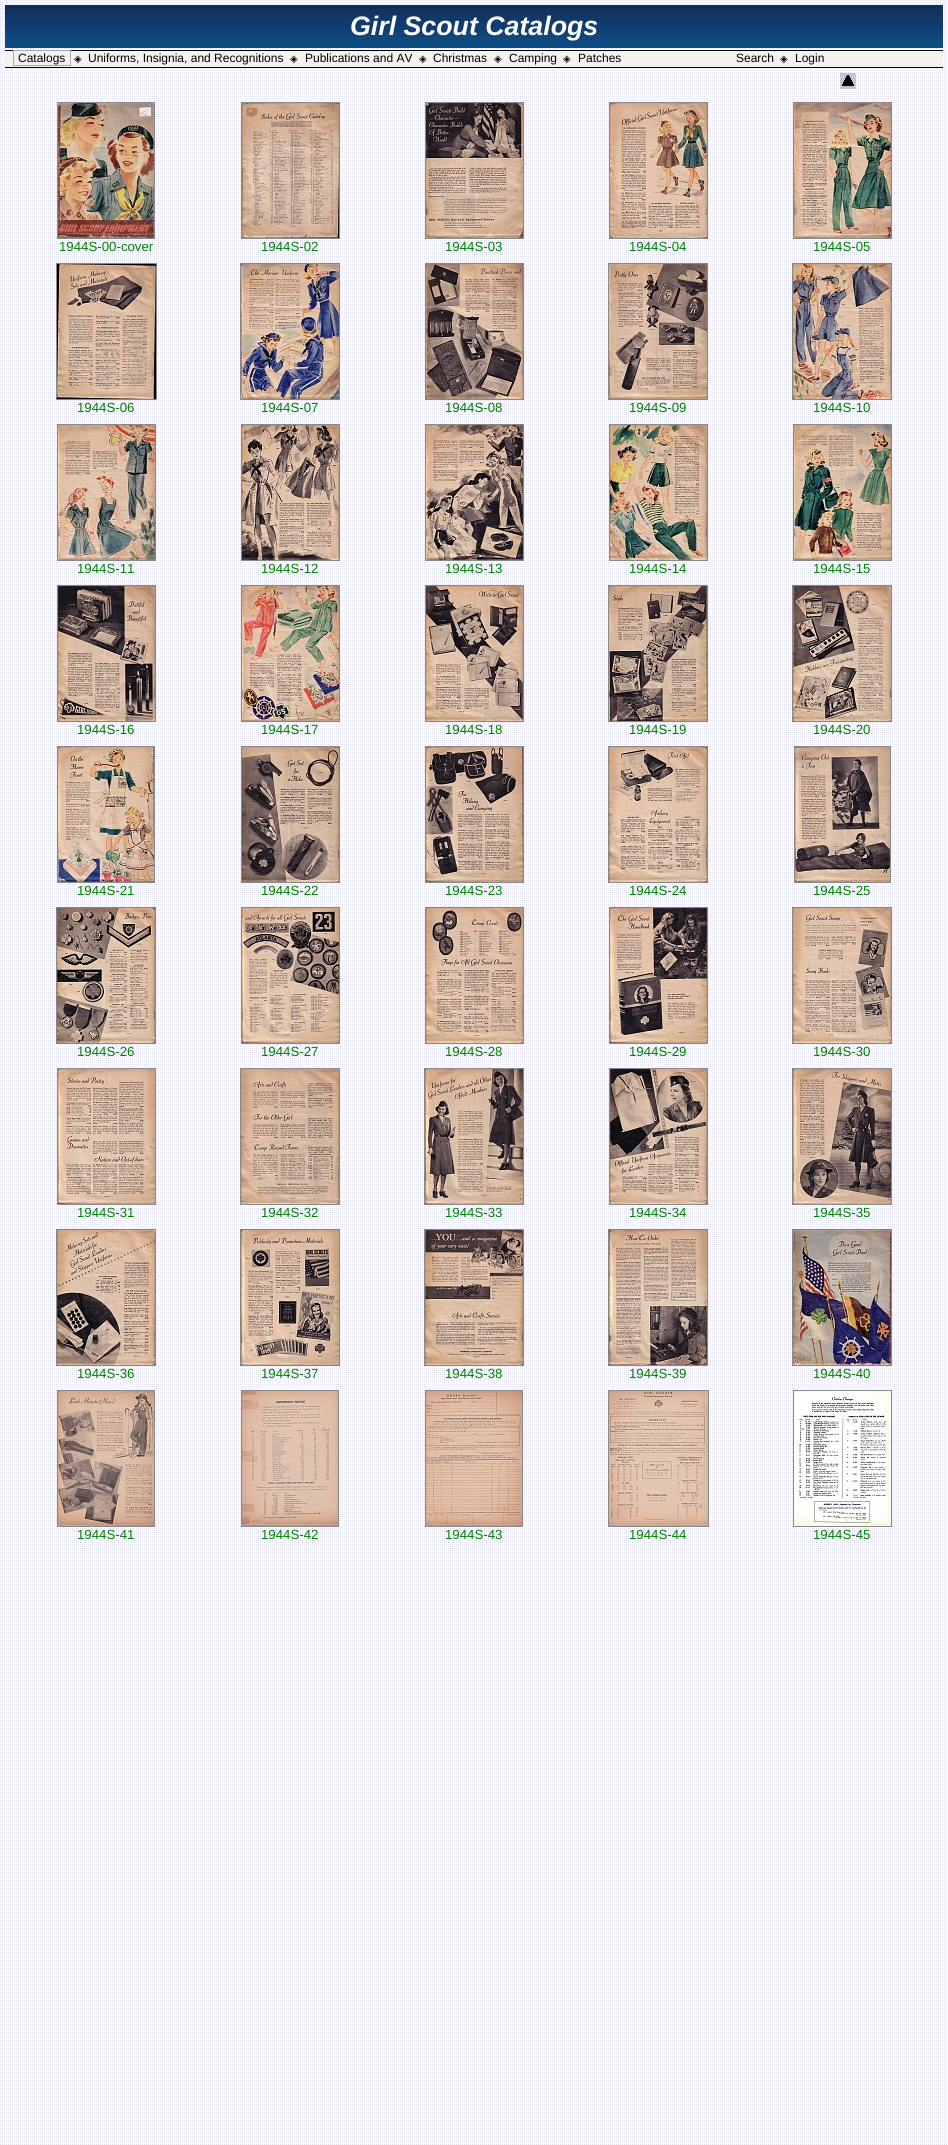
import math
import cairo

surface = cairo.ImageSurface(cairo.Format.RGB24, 948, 2145)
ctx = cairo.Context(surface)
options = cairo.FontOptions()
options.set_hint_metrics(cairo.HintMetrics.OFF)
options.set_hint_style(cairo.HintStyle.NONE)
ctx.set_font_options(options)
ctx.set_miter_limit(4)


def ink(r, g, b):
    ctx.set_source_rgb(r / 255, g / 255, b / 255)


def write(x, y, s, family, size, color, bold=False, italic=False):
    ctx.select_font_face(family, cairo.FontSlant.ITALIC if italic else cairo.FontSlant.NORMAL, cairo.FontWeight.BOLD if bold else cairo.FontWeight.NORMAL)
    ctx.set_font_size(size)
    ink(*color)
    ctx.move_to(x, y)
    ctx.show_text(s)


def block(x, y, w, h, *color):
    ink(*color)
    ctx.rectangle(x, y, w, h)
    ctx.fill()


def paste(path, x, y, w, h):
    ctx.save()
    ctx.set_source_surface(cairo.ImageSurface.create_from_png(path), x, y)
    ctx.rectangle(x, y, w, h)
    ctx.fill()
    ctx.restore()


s1 = dict(family="Liberation Sans", size=26.75, color=(255, 255, 255), bold=True, italic=True)
s2 = dict(family="Liberation Sans", size=12, color=(0, 0, 0))
s3 = dict(family="DejaVu Sans", size=10, color=(0, 0, 0))
s4 = dict(family="Liberation Sans", size=13.25, color=(0, 128, 0))

ink(255, 255, 255)
ctx.paint()
paste("pic1.png", 0, 0, 947, 2145)
paste("pic2.png", 5, 5, 938, 43)
write(350, 35, "Girl Scout Catalogs", **s1)
block(5, 51, 938, 16, 244, 241, 240)
block(5, 50, 938, 1, 0, 0, 0)
block(5, 67, 938, 1, 0, 0, 0)
ctx.rectangle(13.5, 50.5, 57, 15)
ink(169, 169, 169)
ctx.set_line_width(1)
ctx.stroke()
write(18, 62, "Catalogs", **s2)
write(74, 62, "◈", **s3)
write(88, 62, "Uniforms, Insignia, and Recognitions", **s2)
write(290, 62, "◈", **s3)
write(305, 62, "Publications and AV", **s2)
write(419, 62, "◈", **s3)
write(433, 62, "Christmas", **s2)
write(494, 62, "◈", **s3)
write(509, 62, "Camping", **s2)
write(563, 62, "◈", **s3)
write(578, 62, "Patches", **s2)
write(736, 62, "Search", **s2)
write(780, 62, "◈", **s3)
write(795, 62, "Login", **s2)
paste("pic3.png", 840, 73, 16, 16)
ctx.rectangle(57.5, 102.5, 97, 136)
ink(136, 136, 136)
ctx.stroke()
paste("pic4.png", 58, 103, 96, 135)
write(59, 251, "1944S-00-cover", **s4)
ctx.rectangle(241.5, 102.5, 98, 136)
ink(136, 136, 136)
ctx.stroke()
paste("pic5.png", 242, 103, 97, 135)
write(261, 251, "1944S-02", **s4)
ctx.rectangle(425.5, 102.5, 98, 136)
ink(136, 136, 136)
ctx.stroke()
paste("pic6.png", 426, 103, 97, 135)
write(445, 251, "1944S-03", **s4)
ctx.rectangle(609.5, 102.5, 98, 136)
ink(136, 136, 136)
ctx.stroke()
paste("pic7.png", 610, 103, 97, 135)
write(629, 251, "1944S-04", **s4)
ctx.rectangle(793.5, 102.5, 98, 136)
ink(136, 136, 136)
ctx.stroke()
paste("pic8.png", 794, 103, 97, 135)
write(813, 251, "1944S-05", **s4)
ctx.rectangle(56.5, 263.5, 100, 136)
ink(136, 136, 136)
ctx.stroke()
paste("pic9.png", 57, 264, 99, 135)
write(77, 412, "1944S-06", **s4)
ctx.rectangle(240.5, 263.5, 99, 136)
ink(136, 136, 136)
ctx.stroke()
paste("pic10.png", 241, 264, 98, 135)
write(261, 412, "1944S-07", **s4)
ctx.rectangle(425.5, 263.5, 98, 136)
ink(136, 136, 136)
ctx.stroke()
paste("pic11.png", 426, 264, 97, 135)
write(445, 412, "1944S-08", **s4)
ctx.rectangle(608.5, 263.5, 99, 136)
ink(136, 136, 136)
ctx.stroke()
paste("pic12.png", 609, 264, 98, 135)
write(629, 412, "1944S-09", **s4)
ctx.rectangle(792.5, 263.5, 99, 136)
ink(136, 136, 136)
ctx.stroke()
paste("pic13.png", 793, 264, 98, 135)
write(813, 412, "1944S-10", **s4)
ctx.rectangle(57.5, 424.5, 98, 136)
ink(136, 136, 136)
ctx.stroke()
paste("pic14.png", 58, 425, 97, 135)
write(77, 573, "1944S-11", **s4)
ctx.rectangle(241.5, 424.5, 98, 136)
ink(136, 136, 136)
ctx.stroke()
paste("pic15.png", 242, 425, 97, 135)
write(261, 573, "1944S-12", **s4)
ctx.rectangle(425.5, 424.5, 98, 136)
ink(136, 136, 136)
ctx.stroke()
paste("pic16.png", 426, 425, 97, 135)
write(445, 573, "1944S-13", **s4)
ctx.rectangle(609.5, 424.5, 98, 136)
ink(136, 136, 136)
ctx.stroke()
paste("pic17.png", 610, 425, 97, 135)
write(629, 573, "1944S-14", **s4)
ctx.rectangle(793.5, 424.5, 98, 136)
ink(136, 136, 136)
ctx.stroke()
paste("pic18.png", 794, 425, 97, 135)
write(813, 573, "1944S-15", **s4)
ctx.rectangle(57.5, 585.5, 98, 136)
ink(136, 136, 136)
ctx.stroke()
paste("pic19.png", 58, 586, 97, 135)
write(77, 734, "1944S-16", **s4)
ctx.rectangle(241.5, 585.5, 98, 136)
ink(136, 136, 136)
ctx.stroke()
paste("pic20.png", 242, 586, 97, 135)
write(261, 734, "1944S-17", **s4)
ctx.rectangle(425.5, 585.5, 98, 136)
ink(136, 136, 136)
ctx.stroke()
paste("pic21.png", 426, 586, 97, 135)
write(445, 734, "1944S-18", **s4)
ctx.rectangle(608.5, 585.5, 99, 136)
ink(136, 136, 136)
ctx.stroke()
paste("pic22.png", 609, 586, 98, 135)
write(629, 734, "1944S-19", **s4)
ctx.rectangle(792.5, 585.5, 99, 136)
ink(136, 136, 136)
ctx.stroke()
paste("pic23.png", 793, 586, 98, 135)
write(813, 734, "1944S-20", **s4)
ctx.rectangle(57.5, 746.5, 97, 136)
ink(136, 136, 136)
ctx.stroke()
paste("pic24.png", 58, 747, 96, 135)
write(77, 895, "1944S-21", **s4)
ctx.rectangle(241.5, 746.5, 98, 136)
ink(136, 136, 136)
ctx.stroke()
paste("pic25.png", 242, 747, 97, 135)
write(261, 895, "1944S-22", **s4)
ctx.rectangle(425.5, 746.5, 98, 136)
ink(136, 136, 136)
ctx.stroke()
paste("pic26.png", 426, 747, 97, 135)
write(445, 895, "1944S-23", **s4)
ctx.rectangle(608.5, 746.5, 99, 136)
ink(136, 136, 136)
ctx.stroke()
paste("pic27.png", 609, 747, 98, 135)
write(629, 895, "1944S-24", **s4)
ctx.rectangle(794.5, 746.5, 96, 136)
ink(136, 136, 136)
ctx.stroke()
paste("pic28.png", 795, 747, 95, 135)
write(813, 895, "1944S-25", **s4)
ctx.rectangle(56.5, 907.5, 99, 136)
ink(136, 136, 136)
ctx.stroke()
paste("pic29.png", 57, 908, 98, 135)
write(77, 1056, "1944S-26", **s4)
ctx.rectangle(241.5, 907.5, 98, 136)
ink(136, 136, 136)
ctx.stroke()
paste("pic30.png", 242, 908, 97, 135)
write(261, 1056, "1944S-27", **s4)
ctx.rectangle(425.5, 907.5, 98, 136)
ink(136, 136, 136)
ctx.stroke()
paste("pic31.png", 426, 908, 97, 135)
write(445, 1056, "1944S-28", **s4)
ctx.rectangle(609.5, 907.5, 98, 136)
ink(136, 136, 136)
ctx.stroke()
paste("pic32.png", 610, 908, 97, 135)
write(629, 1056, "1944S-29", **s4)
ctx.rectangle(792.5, 907.5, 99, 136)
ink(136, 136, 136)
ctx.stroke()
paste("pic33.png", 793, 908, 98, 135)
write(813, 1056, "1944S-30", **s4)
ctx.rectangle(57.5, 1068.5, 98, 136)
ink(136, 136, 136)
ctx.stroke()
paste("pic34.png", 58, 1069, 97, 135)
write(77, 1217, "1944S-31", **s4)
ctx.rectangle(240.5, 1068.5, 99, 136)
ink(136, 136, 136)
ctx.stroke()
paste("pic35.png", 241, 1069, 98, 135)
write(261, 1217, "1944S-32", **s4)
ctx.rectangle(424.5, 1068.5, 99, 136)
ink(136, 136, 136)
ctx.stroke()
paste("pic36.png", 425, 1069, 98, 135)
write(445, 1217, "1944S-33", **s4)
ctx.rectangle(609.5, 1068.5, 98, 136)
ink(136, 136, 136)
ctx.stroke()
paste("pic37.png", 610, 1069, 97, 135)
write(629, 1217, "1944S-34", **s4)
ctx.rectangle(792.5, 1068.5, 99, 136)
ink(136, 136, 136)
ctx.stroke()
paste("pic38.png", 793, 1069, 98, 135)
write(813, 1217, "1944S-35", **s4)
ctx.rectangle(56.5, 1229.5, 99, 136)
ink(136, 136, 136)
ctx.stroke()
paste("pic39.png", 57, 1230, 98, 135)
write(77, 1378, "1944S-36", **s4)
ctx.rectangle(240.5, 1229.5, 99, 136)
ink(136, 136, 136)
ctx.stroke()
paste("pic40.png", 241, 1230, 98, 135)
write(261, 1378, "1944S-37", **s4)
ctx.rectangle(424.5, 1229.5, 99, 136)
ink(136, 136, 136)
ctx.stroke()
paste("pic41.png", 425, 1230, 98, 135)
write(445, 1378, "1944S-38", **s4)
ctx.rectangle(608.5, 1229.5, 99, 136)
ink(136, 136, 136)
ctx.stroke()
paste("pic42.png", 609, 1230, 98, 135)
write(629, 1378, "1944S-39", **s4)
ctx.rectangle(792.5, 1229.5, 99, 136)
ink(136, 136, 136)
ctx.stroke()
paste("pic43.png", 793, 1230, 98, 135)
write(813, 1378, "1944S-40", **s4)
ctx.rectangle(57.5, 1390.5, 97, 136)
ink(136, 136, 136)
ctx.stroke()
paste("pic44.png", 58, 1391, 96, 135)
write(77, 1539, "1944S-41", **s4)
ctx.rectangle(241.5, 1390.5, 97, 136)
ink(136, 136, 136)
ctx.stroke()
paste("pic45.png", 242, 1391, 96, 135)
write(261, 1539, "1944S-42", **s4)
ctx.rectangle(425.5, 1390.5, 97, 136)
ink(136, 136, 136)
ctx.stroke()
paste("pic46.png", 426, 1391, 96, 135)
write(445, 1539, "1944S-43", **s4)
ctx.rectangle(608.5, 1390.5, 100, 136)
ink(136, 136, 136)
ctx.stroke()
paste("pic47.png", 609, 1391, 99, 135)
write(629, 1539, "1944S-44", **s4)
ctx.rectangle(793.5, 1390.5, 98, 136)
ink(136, 136, 136)
ctx.stroke()
paste("pic48.png", 794, 1391, 97, 135)
write(813, 1539, "1944S-45", **s4)
surface.write_to_png("screenshot.png")
